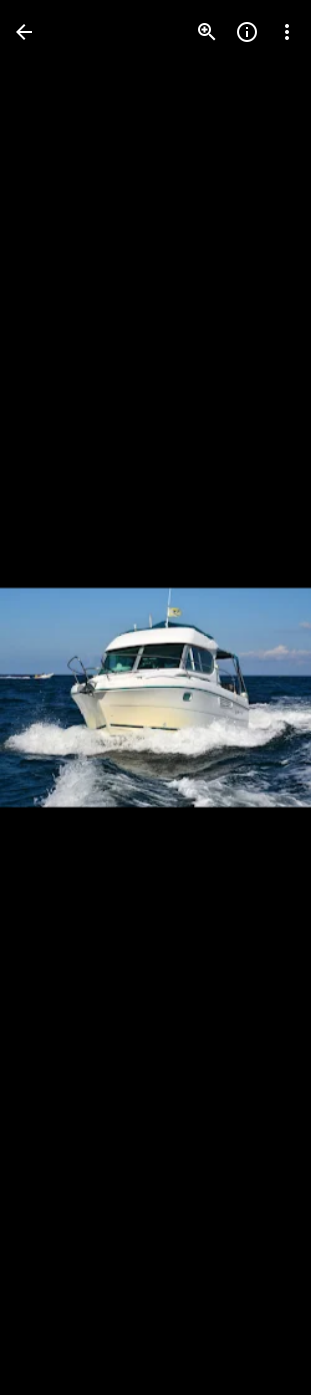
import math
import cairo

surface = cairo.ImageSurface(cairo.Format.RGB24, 311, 1395)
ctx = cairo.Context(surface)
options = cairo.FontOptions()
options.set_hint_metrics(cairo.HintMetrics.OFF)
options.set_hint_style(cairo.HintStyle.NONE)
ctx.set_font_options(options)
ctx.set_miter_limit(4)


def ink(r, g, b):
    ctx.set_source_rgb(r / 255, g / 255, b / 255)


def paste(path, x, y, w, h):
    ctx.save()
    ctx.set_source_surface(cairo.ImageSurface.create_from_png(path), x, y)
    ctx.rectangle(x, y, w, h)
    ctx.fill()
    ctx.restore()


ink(0, 0, 0)
ctx.paint()
paste("pic1.png", 16, 24, 16, 16)
paste("pic2.png", 198, 23, 18, 18)
paste("pic3.png", 237, 22, 20, 20)
paste("pic4.png", 285, 24, 4, 16)
paste("pic5.png", 0, 587, 311, 221)
surface.write_to_png("screenshot.png")
